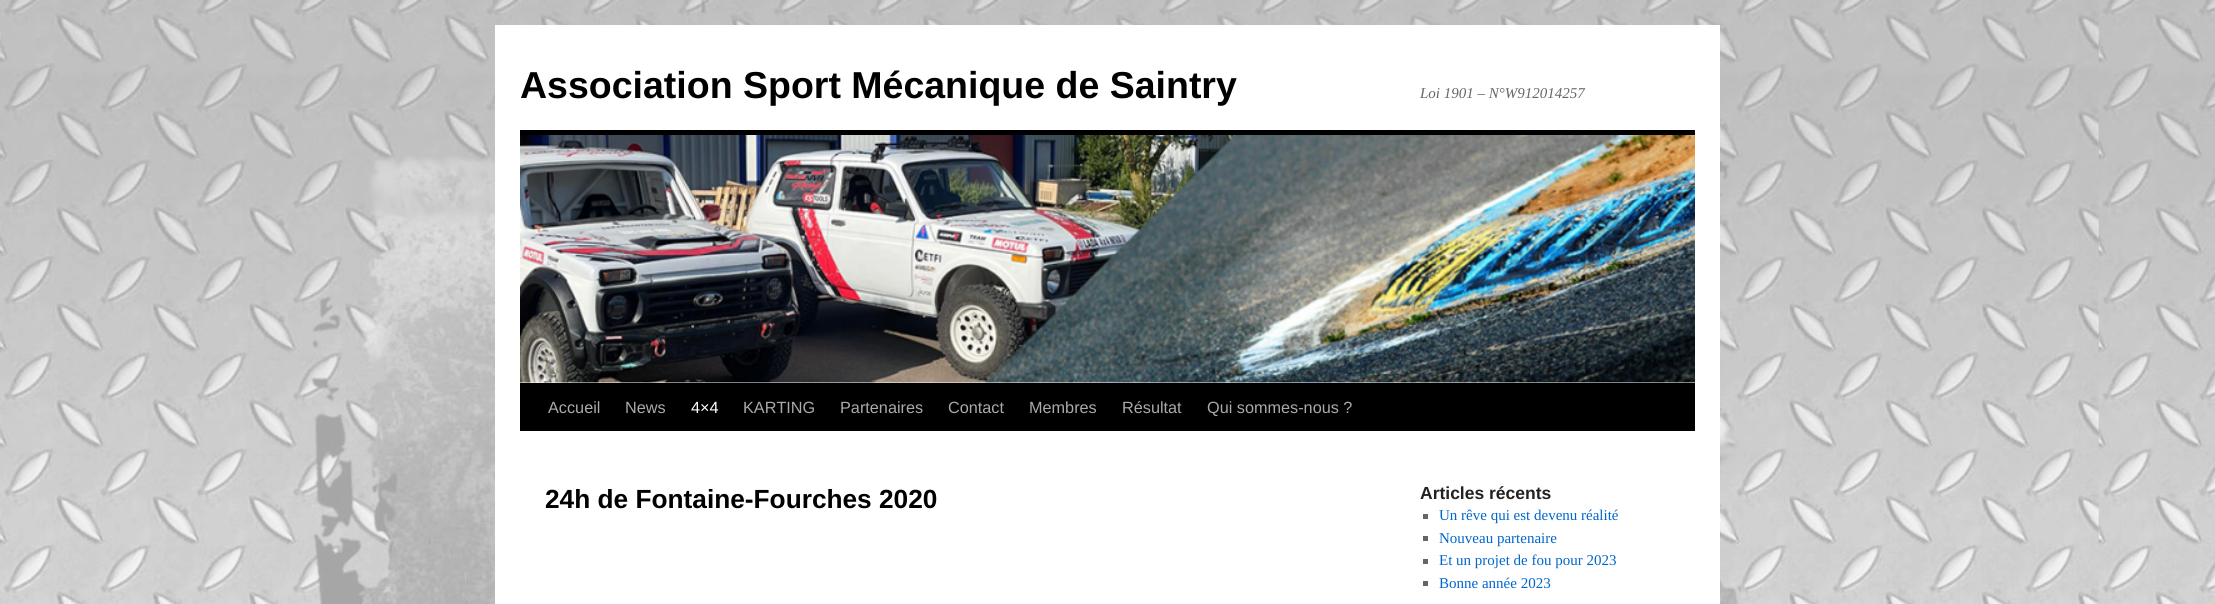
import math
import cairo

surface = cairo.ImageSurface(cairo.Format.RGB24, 2215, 604)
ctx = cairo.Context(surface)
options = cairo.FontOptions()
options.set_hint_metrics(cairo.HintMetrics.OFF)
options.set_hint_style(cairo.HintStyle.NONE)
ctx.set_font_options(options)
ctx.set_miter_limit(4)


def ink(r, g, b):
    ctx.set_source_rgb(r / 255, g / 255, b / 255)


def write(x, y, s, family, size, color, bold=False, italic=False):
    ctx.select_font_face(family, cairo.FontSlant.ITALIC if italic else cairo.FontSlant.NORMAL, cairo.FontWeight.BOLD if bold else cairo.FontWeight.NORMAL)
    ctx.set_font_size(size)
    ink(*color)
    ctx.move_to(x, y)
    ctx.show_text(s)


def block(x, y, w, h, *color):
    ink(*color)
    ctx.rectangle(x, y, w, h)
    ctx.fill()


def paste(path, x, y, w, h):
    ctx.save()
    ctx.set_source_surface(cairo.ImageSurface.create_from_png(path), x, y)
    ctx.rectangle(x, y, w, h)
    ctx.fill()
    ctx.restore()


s1 = dict(family="Liberation Sans", size=37.5, color=(0, 0, 0), bold=True)
s2 = dict(family="Liberation Serif", size=15, color=(102, 102, 102), italic=True)
s3 = dict(family="Liberation Sans", size=16.25, color=(170, 170, 170))
s4 = dict(family="Liberation Sans", size=16.25, color=(255, 255, 255))
s5 = dict(family="Liberation Sans", size=26.25, color=(0, 0, 0), bold=True)
s6 = dict(family="Liberation Sans", size=17.5, color=(34, 34, 34), bold=True)
s7 = dict(family="Liberation Serif", size=15, color=(0, 102, 204))

ink(255, 255, 255)
ctx.paint()
paste("pic1.png", 0, 0, 2215, 604)
block(495, 25, 1225, 579, 255, 255, 255)
write(520, 98, "Association Sport Mécanique de Saintry", **s1)
write(1420, 98, "Loi 1901 – N°W912014257", **s2)
block(520, 130, 1175, 5, 0, 0, 0)
block(520, 383, 1175, 48, 0, 0, 0)
paste("pic2.png", 520, 135, 1175, 248)
write(548, 413, "Accueil", **s3)
write(625, 413, "News", **s3)
write(691, 413, "4×4", **s4)
write(743, 413, "KARTING", **s3)
write(840, 413, "Partenaires", **s3)
write(948, 413, "Contact", **s3)
write(1029, 413, "Membres", **s3)
write(1122, 413, "Résultat", **s3)
write(1207, 413, "Qui sommes-nous ?", **s3)
write(545, 508, "24h de Fontaine-Fourches 2020", **s5)
write(1420, 499, "Articles récents", **s6)
block(1423, 514, 5, 5, 102, 102, 102)
write(1439, 520, "Un rêve qui est devenu réalité", **s7)
block(1423, 536, 5, 5, 102, 102, 102)
write(1439, 543, "Nouveau partenaire", **s7)
block(1423, 559, 5, 5, 102, 102, 102)
write(1439, 565, "Et un projet de fou pour 2023", **s7)
block(1423, 581, 5, 5, 102, 102, 102)
write(1439, 588, "Bonne année 2023", **s7)
surface.write_to_png("screenshot.png")
